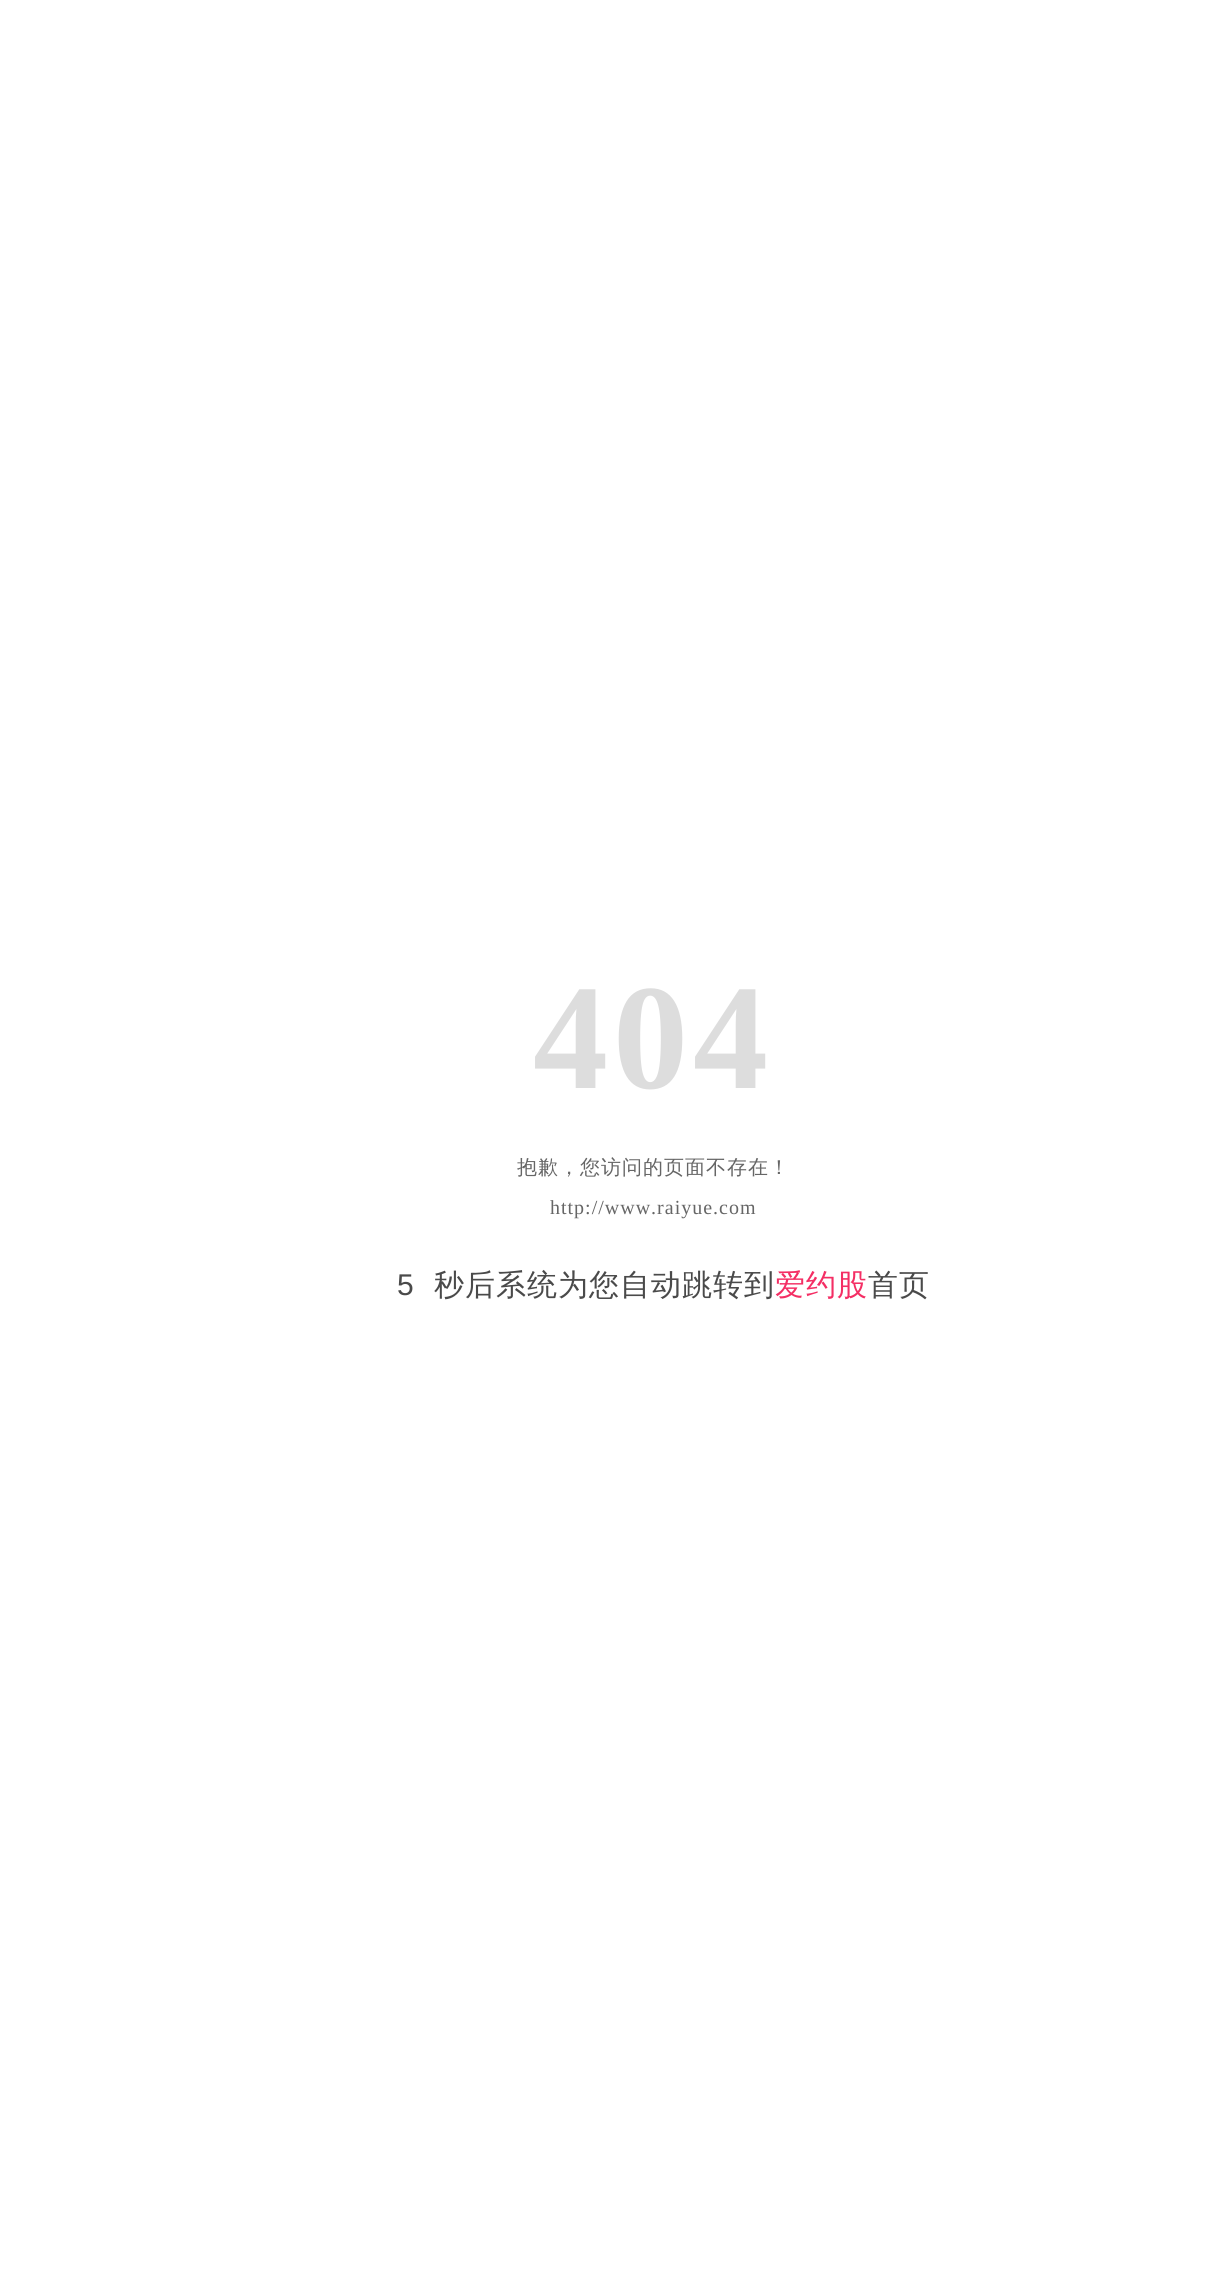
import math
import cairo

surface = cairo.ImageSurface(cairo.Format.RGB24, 1206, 2273)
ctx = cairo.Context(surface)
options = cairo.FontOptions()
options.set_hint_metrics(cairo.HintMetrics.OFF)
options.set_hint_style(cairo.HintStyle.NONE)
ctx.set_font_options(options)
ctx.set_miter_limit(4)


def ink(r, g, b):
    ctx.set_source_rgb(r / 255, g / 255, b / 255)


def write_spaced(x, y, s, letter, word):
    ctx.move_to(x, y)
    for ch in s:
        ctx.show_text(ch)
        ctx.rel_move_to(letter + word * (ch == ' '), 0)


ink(255, 255, 255)
ctx.paint()
ctx.select_font_face("Liberation Serif", cairo.FontSlant.NORMAL, cairo.FontWeight.BOLD)
ctx.set_font_size(150)
ink(221, 221, 221)
write_spaced(533, 1088, "404", 5, 0)
ctx.select_font_face("WenQuanYi Zen Hei Medium")
ctx.set_font_size(20)
ink(102, 102, 102)
write_spaced(517, 1174, "抱歉，您访问的页面不存在！", 1, 0)
ctx.select_font_face("Liberation Serif")
write_spaced(550, 1214, "http://www.raiyue.com", 1, 0)
ctx.select_font_face("Liberation Sans")
ctx.set_font_size(30)
ink(74, 74, 74)
write_spaced(397, 1295, "5", 1, 0)
ctx.select_font_face("WenQuanYi Zen Hei Medium")
write_spaced(434, 1295, "秒后系统为您自动跳转到", 1, 0)
ink(244, 46, 100)
write_spaced(775, 1295, "爱约股", 1, 0)
ink(74, 74, 74)
write_spaced(868, 1295, "首页", 1, 0)
surface.write_to_png("screenshot.png")
